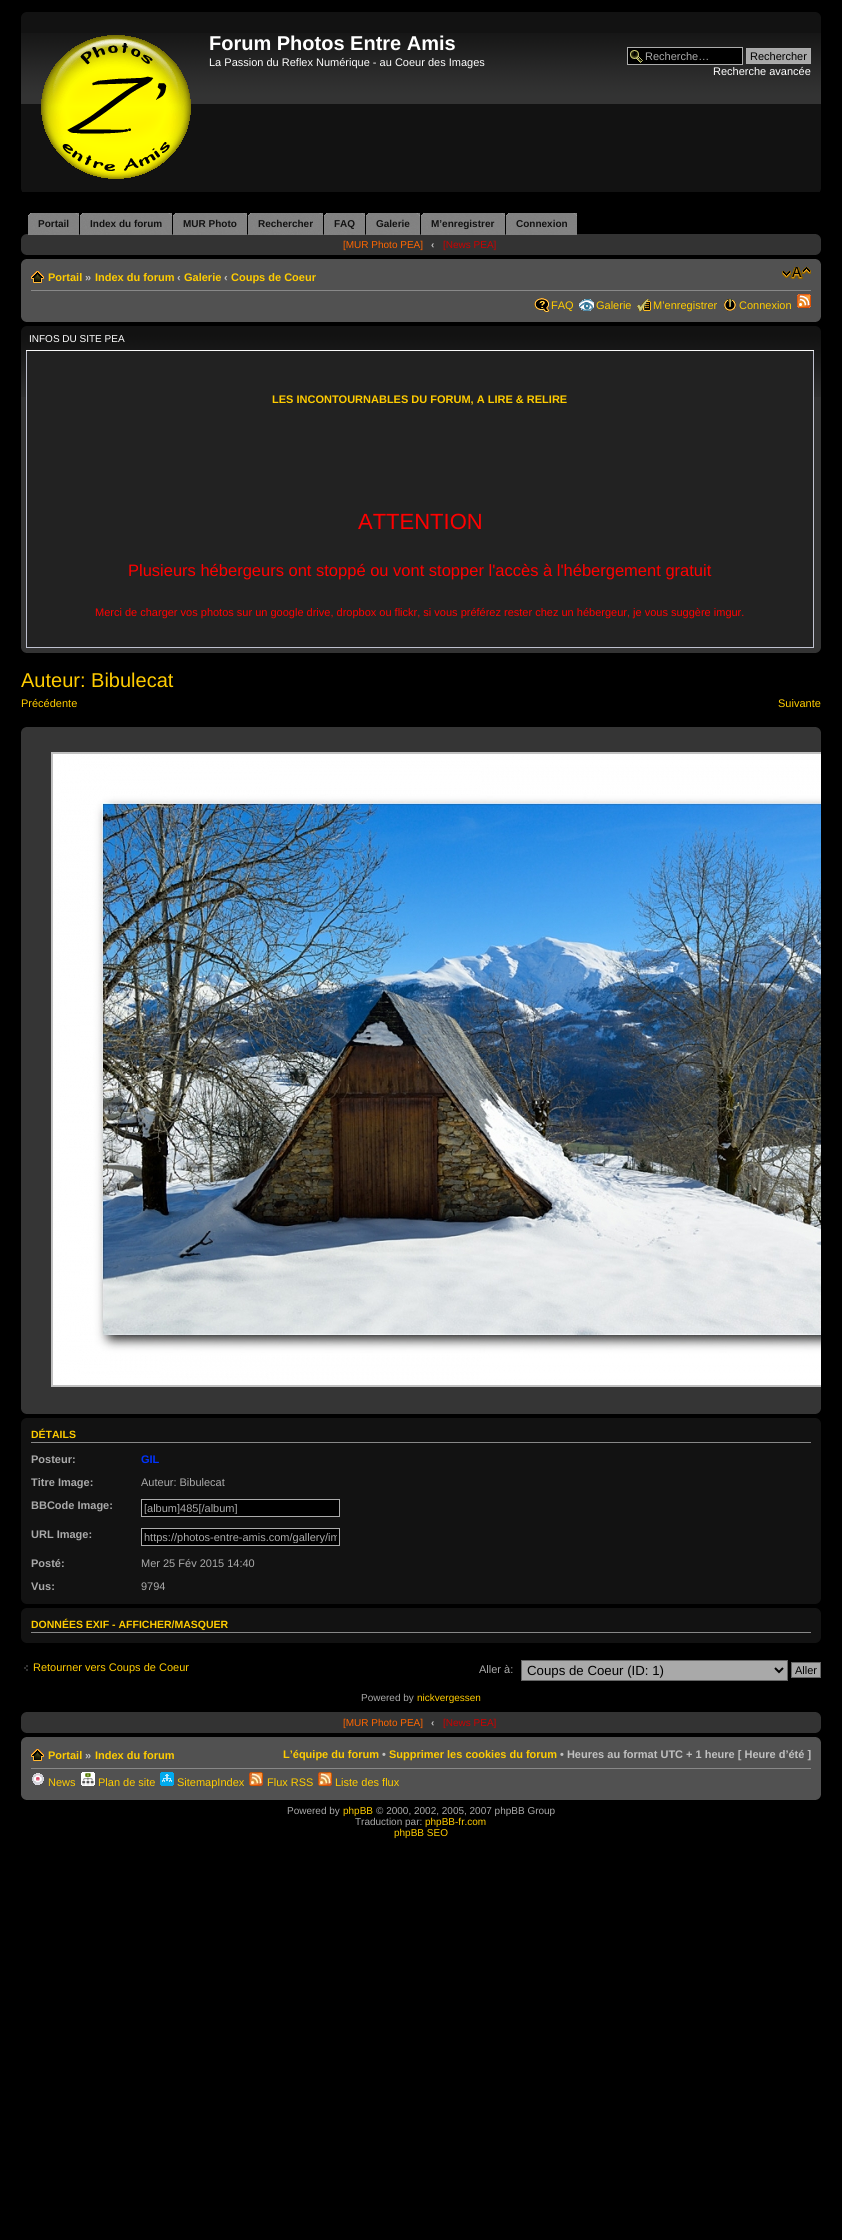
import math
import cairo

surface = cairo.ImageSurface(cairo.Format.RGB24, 842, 2240)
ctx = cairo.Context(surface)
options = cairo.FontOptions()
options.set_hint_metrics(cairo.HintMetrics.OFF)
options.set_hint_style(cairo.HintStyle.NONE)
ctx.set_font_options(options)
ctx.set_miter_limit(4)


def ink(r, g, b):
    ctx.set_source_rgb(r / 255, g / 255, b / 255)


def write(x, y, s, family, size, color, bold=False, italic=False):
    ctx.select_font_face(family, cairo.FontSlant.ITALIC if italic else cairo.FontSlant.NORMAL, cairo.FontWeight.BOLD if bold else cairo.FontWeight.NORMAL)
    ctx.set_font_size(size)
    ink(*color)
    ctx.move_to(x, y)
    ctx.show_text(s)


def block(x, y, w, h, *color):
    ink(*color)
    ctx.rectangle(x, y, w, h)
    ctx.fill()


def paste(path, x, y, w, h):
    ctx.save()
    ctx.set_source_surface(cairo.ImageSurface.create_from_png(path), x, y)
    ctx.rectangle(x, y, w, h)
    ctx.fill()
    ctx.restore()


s1 = dict(family="Liberation Sans", size=20, color=(255, 255, 255), bold=True)
s2 = dict(family="Liberation Sans", size=11, color=(255, 255, 255))
s3 = dict(family="Liberation Sans", size=11, color=(170, 170, 170))
s4 = dict(family="Liberation Sans", size=11, color=(0, 0, 0))
s5 = dict(family="Liberation Sans", size=10, color=(17, 17, 17), bold=True)
s6 = dict(family="Liberation Sans", size=10, color=(255, 102, 0))
s7 = dict(family="Liberation Sans", size=10, color=(193, 193, 193), bold=True)
s8 = dict(family="Liberation Sans", size=10, color=(204, 0, 0))
s9 = dict(family="Liberation Sans", size=11, color=(255, 204, 0), bold=True)
s10 = dict(family="Liberation Sans", size=11, color=(193, 193, 193), bold=True)
s11 = dict(family="Liberation Sans", size=11, color=(255, 204, 0))
s12 = dict(family="Liberation Sans", size=10, color=(255, 255, 255))
s13 = dict(family="Liberation Sans", size=22, color=(255, 0, 0))
s14 = dict(family="Liberation Sans", size=16.5, color=(255, 0, 0))
s15 = dict(family="Liberation Sans", size=11, color=(255, 0, 0))
s16 = dict(family="Liberation Sans", size=20, color=(255, 204, 0))
s17 = dict(family="Liberation Sans", size=10.5, color=(255, 204, 0), bold=True)
s18 = dict(family="Liberation Sans", size=11, color=(170, 170, 170), bold=True)
s19 = dict(family="Liberation Sans", size=11, color=(0, 51, 255), bold=True)
s20 = dict(family="Liberation Sans", size=13.25, color=(0, 0, 0))
s21 = dict(family="Liberation Sans", size=10, color=(170, 170, 170))
s22 = dict(family="Liberation Sans", size=10, color=(255, 204, 0))

ink(0, 0, 0)
ctx.paint()
block(21, 12, 800, 180, 18, 18, 18)
paste("pic1.png", 21, 33, 800, 71)
paste("pic2.png", 21, 12, 5, 5)
paste("pic3.png", 816, 12, 5, 5)
paste("pic4.png", 41, 35, 150, 144)
write(209, 50, "Forum Photos Entre Amis", **s1)
write(209, 66, "La Passion du Reflex Numérique - au Coeur des Images", **s2)
block(628, 48, 114, 16, 0, 0, 0)
paste("pic5.png", 629, 50, 14, 13)
ctx.rectangle(627.5, 47.5, 115, 17)
ink(172, 172, 172)
ctx.set_line_width(1)
ctx.stroke()
write(645, 60, "Recherche…", **s3)
ink(168, 168, 168)
ctx.rectangle(746.5, 48.5, 64, 15)
ctx.fill_preserve()
ink(172, 172, 172)
ctx.stroke()
write(750, 60, "Rechercher", **s4)
write(713, 75, "Recherche avancée", **s2)
paste("pic6.png", 21, 189, 1, 3)
paste("pic6.png", 820, 189, 1, 3)
block(21, 234, 800, 21, 51, 51, 51)
paste("pic7.png", 28, 213, 51, 22)
paste("pic8.png", 75, 213, 4, 3)
write(38, 227, "Portail", **s5)
paste("pic9.png", 80, 213, 92, 22)
paste("pic10.png", 168, 213, 4, 3)
write(90, 227, "Index du forum", **s5)
paste("pic11.png", 173, 213, 74, 22)
paste("pic12.png", 243, 213, 4, 4)
write(183, 227, "MUR Photo", **s5)
paste("pic13.png", 248, 213, 75, 22)
paste("pic14.png", 319, 213, 4, 3)
write(258, 227, "Rechercher", **s5)
paste("pic15.png", 324, 213, 41, 22)
paste("pic16.png", 361, 213, 4, 3)
write(334, 227, "FAQ", **s5)
paste("pic17.png", 366, 213, 54, 22)
paste("pic18.png", 416, 213, 4, 4)
write(376, 227, "Galerie", **s5)
paste("pic19.png", 421, 213, 84, 22)
paste("pic14.png", 501, 213, 4, 3)
write(431, 227, "M’enregistrer", **s5)
paste("pic20.png", 506, 213, 71, 22)
paste("pic8.png", 573, 213, 4, 3)
write(516, 227, "Connexion", **s5)
paste("pic21.png", 21, 234, 5, 5)
paste("pic22.png", 816, 234, 5, 5)
write(343, 248, "[MUR Photo PEA]", **s6)
write(431, 248, "‹", **s7)
write(443, 248, "[News PEA]", **s8)
paste("pic23.png", 21, 250, 5, 5)
paste("pic24.png", 816, 250, 5, 5)
block(21, 259, 800, 63, 81, 81, 81)
paste("pic25.png", 21, 259, 5, 5)
paste("pic26.png", 816, 259, 5, 5)
block(31, 290, 780, 1, 136, 136, 136)
paste("pic27.png", 31, 271, 13, 12)
write(48, 281, "Portail", **s9)
write(85, 281, "»", **s10)
write(95, 281, "Index du forum", **s9)
write(177, 281, "‹", **s10)
write(184, 281, "Galerie", **s9)
write(224, 281, "‹", **s10)
write(231, 281, "Coups de Coeur", **s9)
paste("pic28.png", 782, 267, 29, 12)
paste("pic29.png", 534, 298, 16, 14)
write(551, 309, "FAQ", **s11)
paste("pic30.png", 579, 299, 15, 12)
write(596, 309, "Galerie", **s11)
paste("pic31.png", 637, 299, 14, 13)
write(653, 309, "M’enregistrer", **s11)
paste("pic32.png", 724, 299, 12, 12)
write(739, 309, "Connexion", **s11)
paste("pic33.png", 797, 294, 14, 14)
paste("pic34.png", 21, 317, 5, 5)
paste("pic35.png", 816, 317, 5, 5)
block(21, 397, 800, 256, 51, 51, 51)
paste("pic36.png", 21, 326, 800, 71)
paste("pic2.png", 21, 326, 5, 5)
paste("pic3.png", 816, 326, 5, 5)
write(29, 342, "INFOS DU SITE PEA", **s12)
ink(34, 34, 34)
ctx.rectangle(26.5, 350.5, 787, 297)
ctx.fill_preserve()
ink(191, 193, 207)
ctx.stroke()
block(26, 350, 788, 1, 250, 250, 250)
write(272, 403, "LES INCONTOURNABLES DU FORUM, A LIRE & RELIRE", **s9)
write(358, 529, "ATTENTION", **s13)
write(128, 576, "Plusieurs hébergeurs ont stoppé ou vont stopper l'accès à l'hébergement gratuit", **s14)
write(95, 616, "Merci de charger vos photos sur un google drive, dropbox ou flickr, si vous préférez rester chez un hébergeur, je vous suggère imgur.", **s15)
paste("pic23.png", 21, 648, 5, 5)
paste("pic24.png", 816, 648, 5, 5)
write(21, 687, "Auteur: Bibulecat", **s16)
write(21, 707, "Précédente", **s11)
write(778, 707, "Suivante", **s11)
block(21, 727, 800, 687, 53, 53, 53)
paste("pic37.png", 21, 727, 5, 5)
paste("pic38.png", 816, 727, 5, 5)
ctx.save()
ctx.rectangle(21, 727, 800, 687)
ctx.clip()
ctx.rectangle(52, 753, 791, 633)
ink(192, 192, 192)
ctx.set_line_width(2)
ctx.stroke()
ctx.restore()
paste("pic39.png", 53, 754, 768, 631)
paste("pic40.png", 21, 1409, 5, 5)
paste("pic41.png", 816, 1409, 5, 5)
block(21, 1418, 800, 186, 18, 18, 18)
paste("pic2.png", 21, 1418, 5, 5)
paste("pic3.png", 816, 1418, 5, 5)
block(31, 1442, 780, 1, 136, 136, 136)
write(31, 1438, "DÉTAILS", **s17)
write(31, 1463, "Posteur:", **s18)
write(141, 1463, "GIL", **s19)
write(31, 1486, "Titre Image:", **s18)
write(141, 1486, "Auteur: Bibulecat", **s3)
write(31, 1509, "BBCode Image:", **s18)
ink(0, 0, 0)
ctx.rectangle(141.5, 1499.5, 198, 17)
ctx.fill_preserve()
ink(172, 172, 172)
ctx.stroke()
ctx.save()
ctx.rectangle(144, 1502, 193, 12)
ctx.clip()
write(144, 1512, "[album]485[/album]", **s3)
ctx.restore()
write(31, 1538, "URL Image:", **s18)
ink(0, 0, 0)
ctx.rectangle(141.5, 1528.5, 198, 17)
ctx.fill_preserve()
ink(172, 172, 172)
ctx.stroke()
ctx.save()
ctx.rectangle(144, 1531, 193, 12)
ctx.clip()
write(144, 1541, "https://photos-entre-amis.com/gallery/im", **s3)
ctx.restore()
write(31, 1567, "Posté:", **s18)
write(141, 1567, "Mer 25 Fév 2015 14:40", **s3)
write(31, 1590, "Vus:", **s18)
write(141, 1590, "9794", **s3)
paste("pic42.png", 21, 1599, 5, 5)
paste("pic43.png", 816, 1599, 5, 5)
block(21, 1608, 800, 35, 18, 18, 18)
paste("pic2.png", 21, 1608, 5, 5)
paste("pic3.png", 816, 1608, 5, 5)
block(31, 1632, 780, 1, 136, 136, 136)
write(31, 1628, "DONNÉES EXIF - AFFICHER/MASQUER", **s17)
paste("pic42.png", 21, 1638, 5, 5)
paste("pic43.png", 816, 1638, 5, 5)
paste("pic44.png", 24, 1665, 4, 6)
write(33, 1671, "Retourner vers Coups de Coeur", **s11)
write(479, 1673, "Aller à:", **s3)
ink(169, 169, 169)
ctx.rectangle(521.5, 1660.5, 266, 20)
ctx.fill_preserve()
ink(102, 102, 102)
ctx.stroke()
ctx.new_path()
ctx.move_to(775, 1668)
ctx.line_to(779, 1672)
ctx.line_to(783, 1668)
ink(0, 0, 0)
ctx.set_line_width(2)
ctx.stroke()
write(527, 1675, "Coups de Coeur (ID: 1)", **s20)
ink(168, 168, 168)
ctx.rectangle(791.5, 1662.5, 29, 15)
ctx.fill_preserve()
ink(102, 102, 102)
ctx.set_line_width(1)
ctx.stroke()
write(795, 1674, "Aller", **s4)
write(361, 1701, "Powered by", **s21)
write(417, 1701, "nickvergessen", **s22)
block(21, 1712, 800, 21, 51, 51, 51)
paste("pic21.png", 21, 1712, 5, 5)
paste("pic22.png", 816, 1712, 5, 5)
write(343, 1726, "[MUR Photo PEA]", **s6)
write(431, 1726, "‹", **s7)
write(443, 1726, "[News PEA]", **s8)
paste("pic23.png", 21, 1728, 5, 5)
paste("pic24.png", 816, 1728, 5, 5)
block(21, 1737, 800, 63, 81, 81, 81)
paste("pic25.png", 21, 1737, 5, 5)
paste("pic26.png", 816, 1737, 5, 5)
block(31, 1768, 780, 1, 136, 136, 136)
paste("pic27.png", 31, 1749, 13, 12)
write(48, 1759, "Portail", **s9)
write(85, 1759, "»", **s10)
write(95, 1759, "Index du forum", **s9)
write(283, 1758, "L’équipe du forum", **s9)
write(382, 1758, "•", **s10)
write(389, 1758, "Supprimer les cookies du forum", **s9)
write(560, 1758, "• Heures au format UTC + 1 heure [ Heure d’été ]", **s10)
paste("pic45.png", 32, 1773, 12, 12)
write(48, 1786, "News", **s11)
paste("pic46.png", 81, 1772, 14, 14)
write(98, 1786, "Plan de site", **s11)
paste("pic47.png", 160, 1772, 14, 14)
write(177, 1786, "SitemapIndex", **s11)
paste("pic48.png", 249, 1772, 14, 14)
write(267, 1786, "Flux RSS", **s11)
paste("pic48.png", 318, 1772, 14, 14)
write(335, 1786, "Liste des flux", **s11)
paste("pic34.png", 21, 1795, 5, 5)
paste("pic35.png", 816, 1795, 5, 5)
write(287, 1814, "Powered by", **s21)
write(343, 1814, "phpBB", **s22)
write(376, 1814, "© 2000, 2002, 2005, 2007 phpBB Group", **s21)
write(355, 1825, "Traduction par:", **s21)
write(425, 1825, "phpBB-fr.com", **s22)
write(394, 1836, "phpBB SEO", **s22)
surface.write_to_png("screenshot.png")
